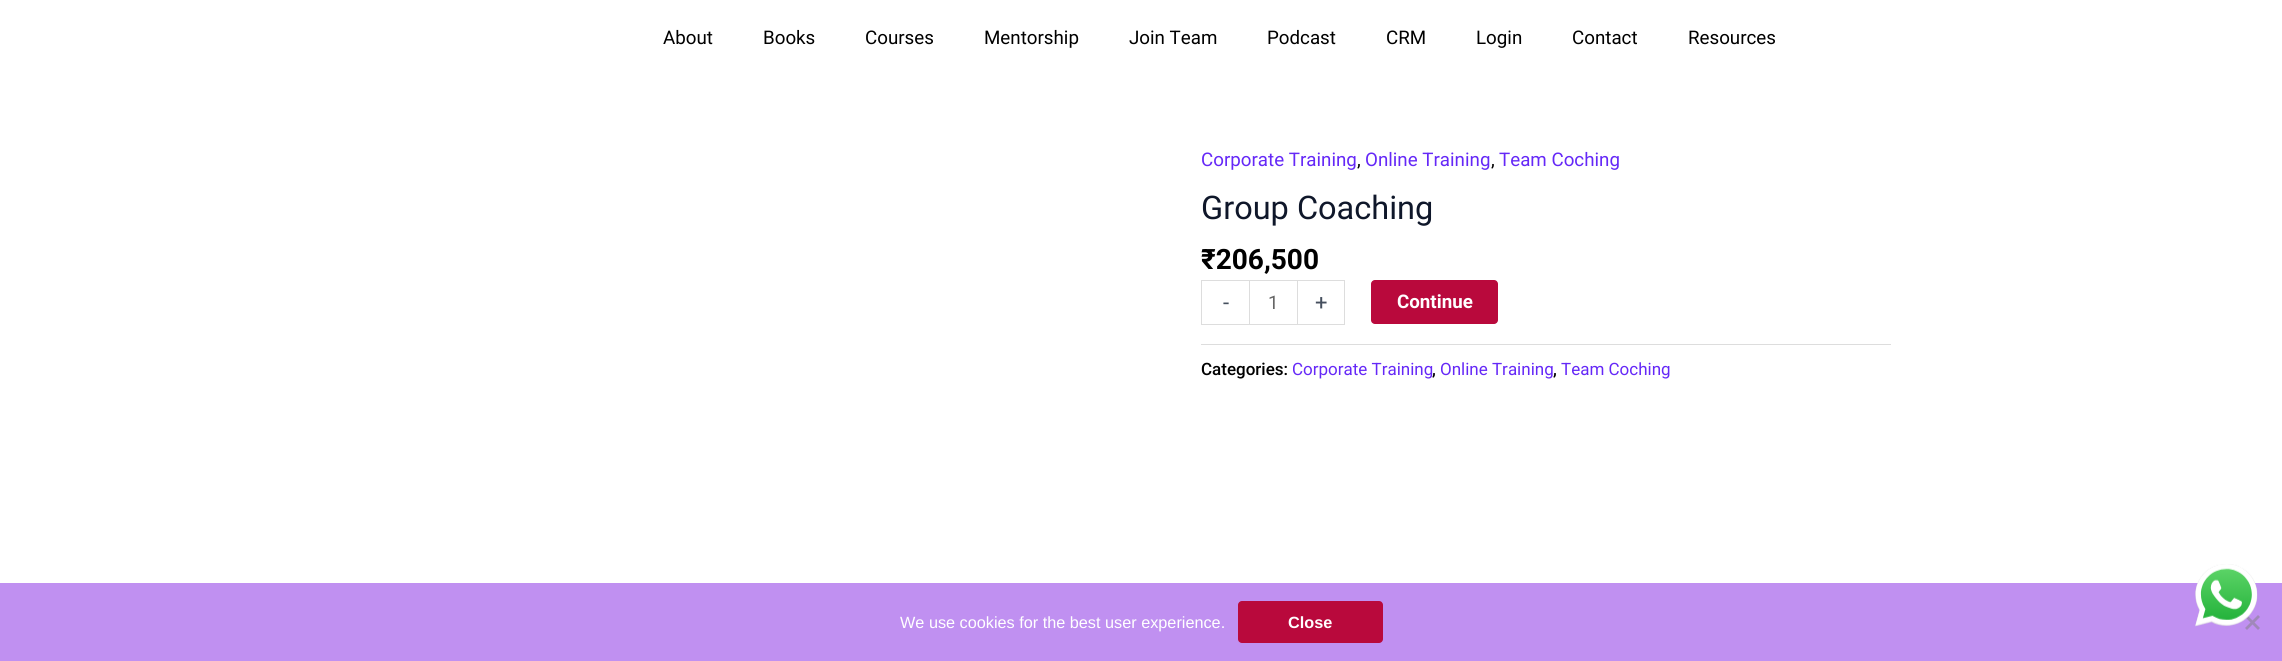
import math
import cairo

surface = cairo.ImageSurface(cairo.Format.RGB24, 2282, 661)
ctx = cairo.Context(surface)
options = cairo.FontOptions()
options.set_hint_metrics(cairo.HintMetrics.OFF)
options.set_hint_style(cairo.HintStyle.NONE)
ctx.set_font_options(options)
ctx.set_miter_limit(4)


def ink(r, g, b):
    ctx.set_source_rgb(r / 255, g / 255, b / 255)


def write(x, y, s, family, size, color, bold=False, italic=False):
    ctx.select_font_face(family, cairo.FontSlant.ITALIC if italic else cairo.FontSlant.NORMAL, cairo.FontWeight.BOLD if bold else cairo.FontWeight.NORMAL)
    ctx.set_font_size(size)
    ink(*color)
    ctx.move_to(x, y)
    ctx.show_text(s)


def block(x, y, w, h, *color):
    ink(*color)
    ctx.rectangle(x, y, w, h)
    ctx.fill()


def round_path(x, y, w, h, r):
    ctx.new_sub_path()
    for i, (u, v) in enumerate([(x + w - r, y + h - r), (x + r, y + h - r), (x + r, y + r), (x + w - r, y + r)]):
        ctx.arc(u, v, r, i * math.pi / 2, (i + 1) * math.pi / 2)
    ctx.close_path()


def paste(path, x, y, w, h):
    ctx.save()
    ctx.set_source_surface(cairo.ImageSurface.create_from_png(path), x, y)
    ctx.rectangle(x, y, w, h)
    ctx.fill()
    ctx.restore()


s1 = dict(family="Roboto", size=18.75, color=(0, 0, 0))
s2 = dict(family="Roboto", size=18.75, color=(101, 40, 247))
s3 = dict(family="Roboto", size=32.5, color=(15, 23, 42))
s4 = dict(family="Roboto", size=28, color=(0, 0, 0), bold=True)
s5 = dict(family="Roboto", size=22, color=(69, 79, 94))
s6 = dict(family="Roboto", size=18.75, color=(102, 102, 102))
s7 = dict(family="Roboto", size=18.75, color=(255, 255, 255), bold=True)
s8 = dict(family="Roboto Medium", size=17, color=(0, 0, 0))
s9 = dict(family="Roboto", size=17, color=(101, 40, 247))
s10 = dict(family="Liberation Sans", size=16.25, color=(255, 255, 255))
s11 = dict(family="Liberation Sans", size=16.25, color=(255, 255, 255), bold=True)

ink(255, 255, 255)
ctx.paint()
write(663, 44, "About", **s1)
write(763, 44, "Books", **s1)
write(865, 44, "Courses", **s1)
write(984, 44, "Mentorship", **s1)
write(1129, 44, "Join Team", **s1)
write(1267, 44, "Podcast", **s1)
write(1386, 44, "CRM", **s1)
write(1476, 44, "Login", **s1)
write(1572, 44, "Contact", **s1)
write(1688, 44, "Resources", **s1)
write(1201, 166, "Corporate Training", **s2)
write(1357, 166, ",", **s1)
write(1365, 166, "Online Training", **s2)
write(1491, 166, ",", **s1)
write(1499, 166, "Team Coching", **s2)
write(1201, 219, "Group Coaching", **s3)
write(1201, 269, "₹206,500", **s4)
block(1201, 280, 48, 1, 221, 221, 221)
block(1201, 324, 48, 1, 221, 221, 221)
block(1201, 280, 1, 45, 221, 221, 221)
write(1223, 310, "-", **s5)
ctx.rectangle(1249.5, 280.5, 48, 44)
ink(221, 221, 221)
ctx.set_line_width(1)
ctx.stroke()
write(1268, 309, "1", **s6)
block(1298, 280, 47, 1, 221, 221, 221)
block(1344, 280, 1, 45, 221, 221, 221)
block(1298, 324, 47, 1, 221, 221, 221)
write(1315, 310, "+", **s5)
ink(185, 9, 60)
round_path(1371, 280, 127, 44, 4)
ctx.fill()
write(1397, 308, "Continue", **s7)
block(1201, 344, 690, 1, 221, 221, 221)
write(1201, 375, "Categories:", **s8)
write(1292, 375, "Corporate Training", **s9)
write(1432, 375, ",", **s8)
write(1440, 375, "Online Training", **s9)
write(1553, 375, ",", **s8)
write(1561, 375, "Team Coching", **s9)
block(0, 583, 2282, 78, 192, 144, 241)
write(900, 628, "We use cookies for the best user experience.", **s10)
ink(185, 9, 60)
round_path(1238, 601, 145, 42, 4)
ctx.fill()
write(1288, 628, "Close", **s11)
ink(160, 136, 185)
ctx.new_path()
ctx.move_to(2258, 615)
ctx.line_to(2260, 617)
ctx.line_to(2247, 630)
ctx.line_to(2245, 628)
ctx.close_path()
ctx.fill()
ctx.new_path()
ctx.move_to(2245, 617)
ctx.line_to(2247, 615)
ctx.line_to(2260, 628)
ctx.line_to(2258, 630)
ctx.close_path()
ctx.fill()
paste("pic1.png", 2195, 564, 63, 63)
surface.write_to_png("screenshot.png")
